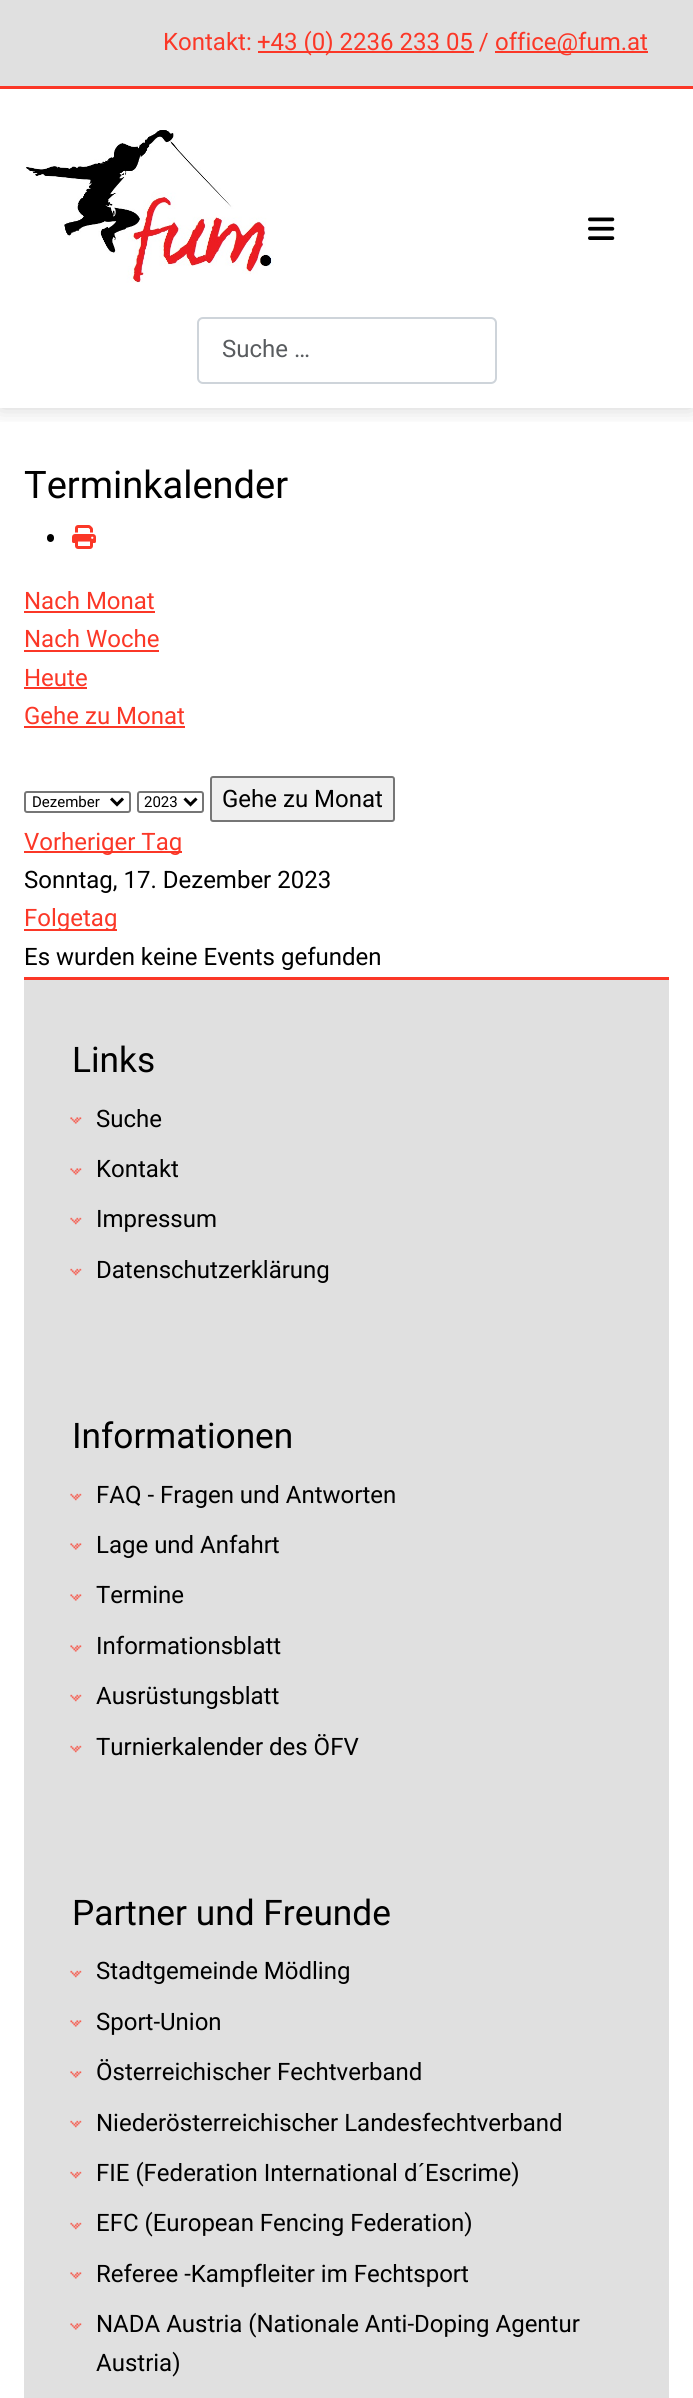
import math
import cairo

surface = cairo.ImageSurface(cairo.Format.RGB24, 693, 2398)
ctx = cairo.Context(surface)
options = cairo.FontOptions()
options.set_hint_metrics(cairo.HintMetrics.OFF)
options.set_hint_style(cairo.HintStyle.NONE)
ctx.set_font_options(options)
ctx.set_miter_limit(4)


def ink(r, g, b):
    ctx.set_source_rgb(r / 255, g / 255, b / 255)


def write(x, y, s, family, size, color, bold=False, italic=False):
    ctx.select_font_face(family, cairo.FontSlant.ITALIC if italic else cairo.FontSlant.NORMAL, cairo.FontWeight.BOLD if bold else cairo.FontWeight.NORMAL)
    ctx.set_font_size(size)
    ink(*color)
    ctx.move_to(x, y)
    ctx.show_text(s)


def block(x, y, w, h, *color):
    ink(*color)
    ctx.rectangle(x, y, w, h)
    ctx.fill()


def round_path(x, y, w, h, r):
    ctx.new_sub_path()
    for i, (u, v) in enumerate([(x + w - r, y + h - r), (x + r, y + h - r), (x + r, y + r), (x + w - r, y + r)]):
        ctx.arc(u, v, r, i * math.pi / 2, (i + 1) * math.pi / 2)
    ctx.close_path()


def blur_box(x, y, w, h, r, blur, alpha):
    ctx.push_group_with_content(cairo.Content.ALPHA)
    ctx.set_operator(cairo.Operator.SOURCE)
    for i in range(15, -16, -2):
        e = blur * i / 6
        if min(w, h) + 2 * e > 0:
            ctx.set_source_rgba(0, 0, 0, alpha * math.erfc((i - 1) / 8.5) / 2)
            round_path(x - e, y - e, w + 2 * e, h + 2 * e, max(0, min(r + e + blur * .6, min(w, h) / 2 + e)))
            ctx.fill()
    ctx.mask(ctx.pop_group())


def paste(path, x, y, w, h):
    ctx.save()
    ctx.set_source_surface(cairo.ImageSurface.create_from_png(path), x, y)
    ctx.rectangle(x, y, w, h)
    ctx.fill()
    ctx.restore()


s1 = dict(family="Roboto", size=24, color=(251, 55, 39))
s2 = dict(family="Roboto", size=24, color=(89, 92, 95))
s3 = dict(family="Roboto", size=38, color=(0, 0, 0))
s4 = dict(family="Roboto", size=15, color=(0, 0, 0))
s5 = dict(family="Roboto", size=24, color=(0, 0, 0))
s6 = dict(family="Roboto", size=35.25, color=(0, 0, 0))

ink(255, 255, 255)
ctx.paint()
ctx.save()
ctx.rectangle(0, 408, 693, 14)
ctx.clip()
ink(24, 24, 24)
blur_box(0, 0, 693, 408, 0, 11, 0.2)
ctx.restore()
block(0, 0, 693, 86, 224, 224, 224)
block(0, 86, 693, 3, 251, 55, 39)
write(163, 50, "Kontakt:", **s1)
block(258, 51, 216, 2, 251, 55, 39)
write(257, 50, "+43 (0) 2236 233 05 /", **s1)
block(495, 51, 153, 2, 251, 55, 39)
write(495, 50, "office@fum.at", **s1)
paste("pic1.png", 26, 130, 248, 153)
paste("pic2.png", 588, 217, 27, 23)
round_path(198, 318, 298, 65, 5)
ink(206, 212, 218)
ctx.stroke()
write(222, 357, "Suche …", **s2)
write(24, 498, "Terminkalender", **s3)
round_path(47, 534, 7, 8, 3.5)
ctx.fill()
paste("pic3.png", 72, 525, 24, 24)
write(24, 609, "Nach Monat", **s1)
block(24, 611, 131, 2, 251, 55, 39)
write(24, 647, "Nach Woche", **s1)
block(24, 650, 135, 2, 251, 55, 39)
write(24, 686, "Heute", **s1)
block(24, 687, 63, 2, 251, 55, 39)
write(24, 724, "Gehe zu Monat", **s1)
block(24, 726, 161, 2, 251, 55, 39)
round_path(25, 792, 105, 20, 2)
ink(118, 118, 118)
ctx.stroke()
ctx.new_path()
ctx.move_to(111, 798.5)
ctx.line_to(117, 804.5)
ctx.line_to(123, 798.5)
ink(0, 0, 0)
ctx.set_line_width(3)
ctx.stroke()
write(32, 807, "Dezember", **s4)
round_path(138, 792, 65, 20, 2)
ink(118, 118, 118)
ctx.set_line_width(2)
ctx.stroke()
ctx.new_path()
ctx.move_to(184.5, 798.5)
ctx.line_to(190.5, 804.5)
ctx.line_to(196.5, 798.5)
ink(0, 0, 0)
ctx.set_line_width(3)
ctx.stroke()
write(144, 807, "2023", **s4)
ink(239, 239, 239)
round_path(211, 777, 183, 44, 2)
ctx.fill_preserve()
ink(118, 118, 118)
ctx.set_line_width(2)
ctx.stroke()
write(222, 807, "Gehe zu Monat", **s5)
block(24, 851, 158, 2, 251, 55, 39)
write(24, 850, "Vorheriger Tag", **s1)
write(24, 888, "Sonntag, 17. Dezember 2023", **s5)
block(24, 929, 93, 2, 251, 55, 39)
write(24, 926, "Folgetag", **s1)
write(24, 965, "Es wurden keine Events gefunden", **s5)
block(24, 980, 645, 1418, 224, 224, 224)
block(24, 977, 645, 3, 251, 55, 39)
write(72, 1072, "Links", **s6)
paste("pic4.png", 70, 1117, 12, 7)
write(96, 1127, "Suche", **s5)
paste("pic4.png", 70, 1168, 12, 7)
write(96, 1177, "Kontakt", **s5)
paste("pic5.png", 70, 1217, 12, 8)
write(96, 1227, "Impressum", **s5)
paste("pic5.png", 70, 1268, 12, 8)
write(96, 1278, "Datenschutzerklärung", **s5)
write(72, 1448, "Informationen", **s6)
paste("pic5.png", 70, 1493, 12, 8)
write(96, 1503, "FAQ - Fragen und Antworten", **s5)
paste("pic4.png", 70, 1543, 12, 7)
write(96, 1553, "Lage und Anfahrt", **s5)
paste("pic4.png", 70, 1594, 12, 7)
write(96, 1603, "Termine", **s5)
paste("pic4.png", 70, 1645, 12, 7)
write(96, 1654, "Informationsblatt", **s5)
paste("pic5.png", 70, 1694, 12, 8)
write(96, 1704, "Ausrüstungsblatt", **s5)
paste("pic5.png", 70, 1745, 12, 8)
write(96, 1755, "Turnierkalender des ÖFV", **s5)
write(72, 1925, "Partner und Freunde", **s6)
paste("pic5.png", 70, 1970, 12, 8)
write(96, 1979, "Stadtgemeinde Mödling", **s5)
paste("pic4.png", 70, 2020, 12, 7)
write(96, 2030, "Sport-Union", **s5)
paste("pic4.png", 70, 2071, 12, 7)
write(96, 2080, "Österreichischer Fechtverband", **s5)
paste("pic5.png", 70, 2120, 12, 8)
write(96, 2131, "Niederösterreichischer Landesfechtverband", **s5)
paste("pic5.png", 70, 2171, 12, 8)
write(96, 2181, "FIE (Federation International d´Escrime)", **s5)
paste("pic5.png", 70, 2222, 12, 8)
write(96, 2231, "EFC (European Fencing Federation)", **s5)
paste("pic4.png", 70, 2272, 12, 7)
write(96, 2282, "Referee -Kampfleiter im Fechtsport", **s5)
paste("pic4.png", 70, 2323, 12, 7)
write(96, 2332, "NADA Austria (Nationale Anti-Doping Agentur", **s5)
write(96, 2371, "Austria)", **s5)
surface.write_to_png("screenshot.png")
